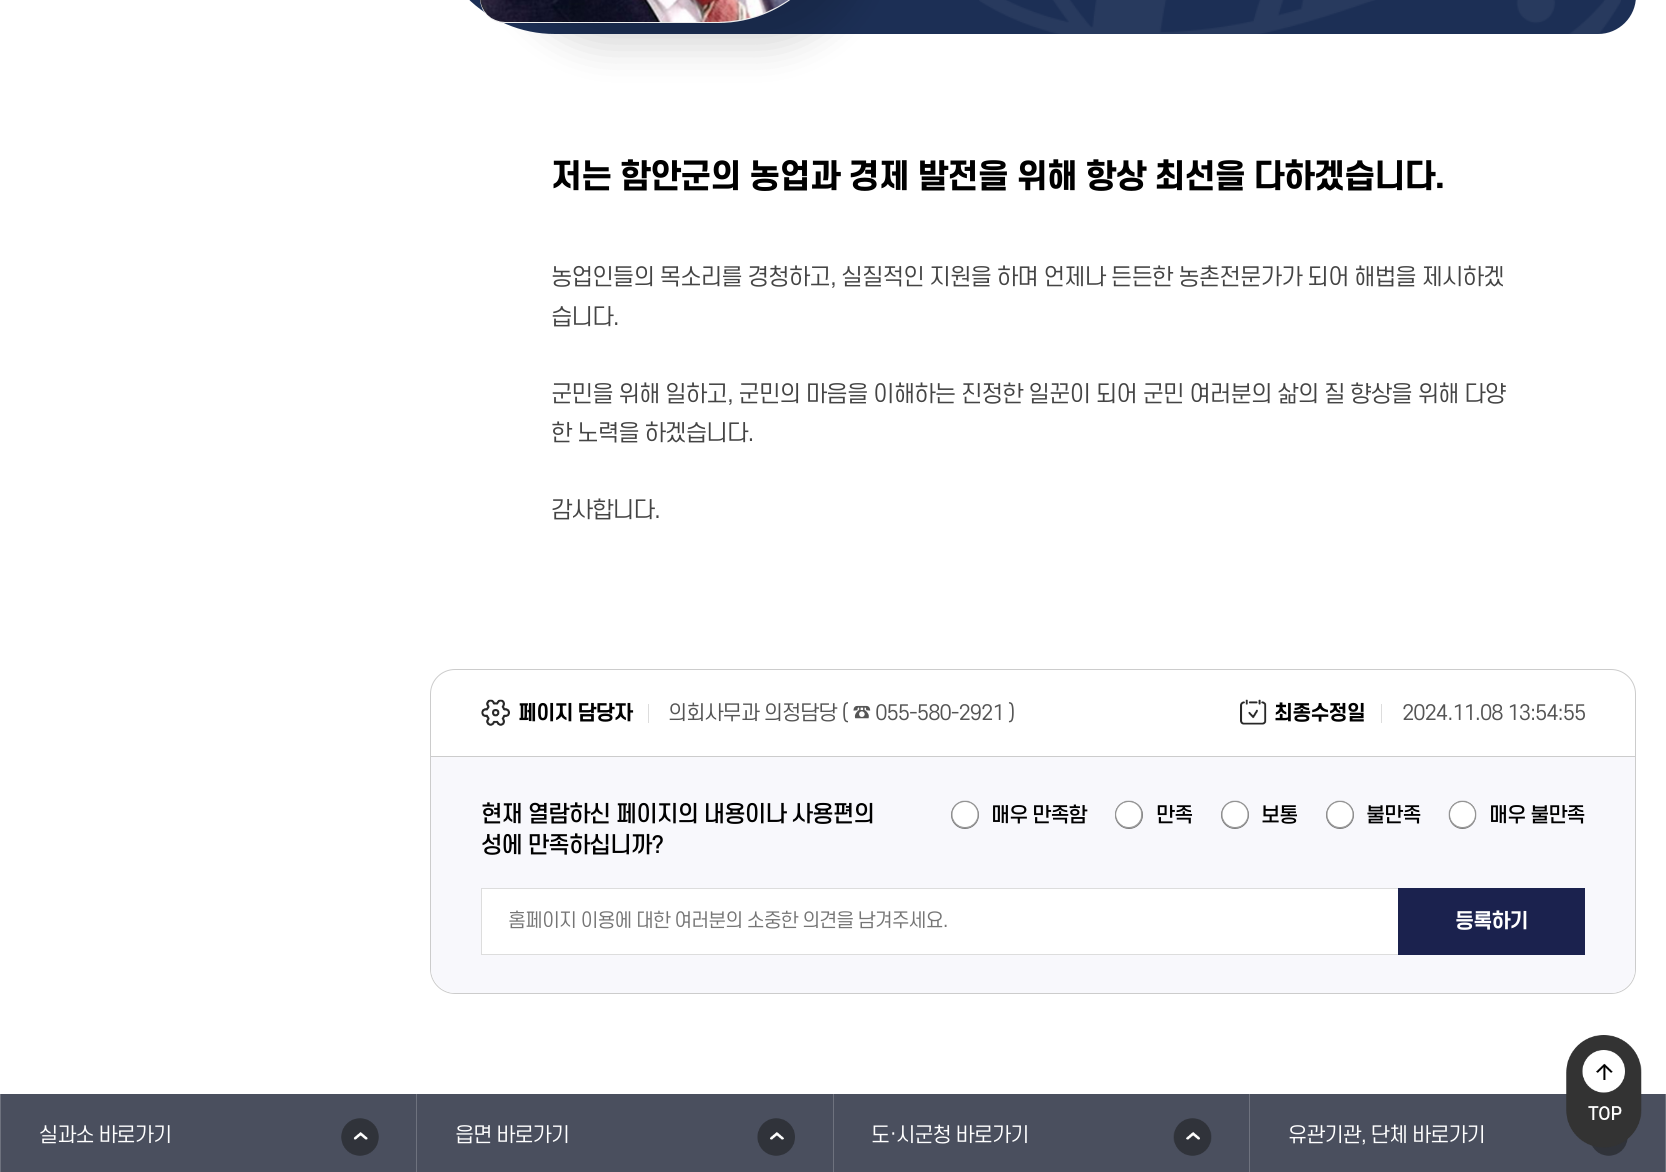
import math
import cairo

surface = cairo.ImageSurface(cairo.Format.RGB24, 1666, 1172)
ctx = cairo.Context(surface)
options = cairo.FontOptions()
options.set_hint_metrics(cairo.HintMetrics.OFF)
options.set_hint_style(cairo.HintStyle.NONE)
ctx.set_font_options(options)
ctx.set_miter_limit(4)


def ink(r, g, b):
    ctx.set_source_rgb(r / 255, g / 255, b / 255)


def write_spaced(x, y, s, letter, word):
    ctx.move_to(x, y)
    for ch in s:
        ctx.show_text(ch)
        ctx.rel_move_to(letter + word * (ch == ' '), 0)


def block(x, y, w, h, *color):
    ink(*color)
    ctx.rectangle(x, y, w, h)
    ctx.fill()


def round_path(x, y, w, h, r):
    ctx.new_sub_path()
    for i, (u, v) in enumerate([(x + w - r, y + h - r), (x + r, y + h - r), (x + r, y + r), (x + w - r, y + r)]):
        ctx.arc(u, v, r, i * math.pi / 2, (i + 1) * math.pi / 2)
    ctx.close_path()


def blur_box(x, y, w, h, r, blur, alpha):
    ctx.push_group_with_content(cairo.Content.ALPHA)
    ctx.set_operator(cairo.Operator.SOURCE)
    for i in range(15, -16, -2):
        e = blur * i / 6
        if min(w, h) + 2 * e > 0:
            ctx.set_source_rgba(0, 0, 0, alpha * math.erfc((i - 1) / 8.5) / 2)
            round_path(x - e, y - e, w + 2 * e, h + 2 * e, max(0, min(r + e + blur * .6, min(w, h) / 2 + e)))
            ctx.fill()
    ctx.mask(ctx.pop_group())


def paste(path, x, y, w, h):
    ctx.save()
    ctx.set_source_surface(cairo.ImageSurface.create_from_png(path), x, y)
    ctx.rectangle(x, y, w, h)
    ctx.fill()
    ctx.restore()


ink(255, 255, 255)
ctx.paint()
ink(28, 47, 85)
ctx.new_path()
ctx.move_to(468, -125)
ctx.line_to(1598, -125)
ctx.curve_to(1619, -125, 1636, -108, 1636, -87)
ctx.line_to(1636, -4)
ctx.curve_to(1636, 17, 1619, 34, 1598, 34)
ctx.line_to(555, 34)
ctx.curve_to(486, 34, 430, -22, 430, -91)
ctx.line_to(430, -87)
ctx.curve_to(430, -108, 447, -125, 468, -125)
ctx.close_path()
ctx.fill()
ink(0, 0, 0)
blur_box(505, -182, 363, 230, 125, 19, 0.15)
ink(238, 238, 238)
ctx.new_path()
ctx.move_to(505, -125)
ctx.line_to(818, -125)
ctx.curve_to(832, -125, 843, -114, 843, -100)
ctx.line_to(843, -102)
ctx.curve_to(843, -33, 787, 23, 718, 23)
ctx.line_to(505, 23)
ctx.curve_to(491, 23, 480, 12, 480, -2)
ctx.line_to(480, -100)
ctx.curve_to(480, -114, 491, -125, 505, -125)
ctx.close_path()
ctx.fill()
paste("pic1.png", 480, 0, 309, 22)
paste("pic2.png", 979, 0, 642, 34)
ctx.select_font_face("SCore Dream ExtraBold")
ctx.set_font_size(32.5)
ink(0, 0, 0)
write_spaced(551, 188, "저는 함안군의 농업과 경제 발전을 위해 항상 최선을 다하겠습니다.", -1, 0)
ctx.select_font_face("SCore Dream")
ctx.set_font_size(22.5)
ink(68, 68, 68)
write_spaced(551, 285, "농업인들의 목소리를 경청하고, 실질적인 지원을 하며 언제나 든든한 농촌전문가가 되어 해법을 제시하겠", -1, 0)
write_spaced(551, 325, "습니다.", -1, 0)
write_spaced(551, 402, "군민을 위해 일하고, 군민의 마음을 이해하는 진정한 일꾼이 되어 군민 여러분의 삶의 질 향상을 위해 다양", -1, 0)
write_spaced(551, 441, "한 노력을 하겠습니다.", -1, 0)
write_spaced(551, 518, "감사합니다.", -1, 0)
round_path(430.5, 669.5, 1205, 324, 24.5)
ink(204, 204, 204)
ctx.set_line_width(1)
ctx.stroke()
paste("pic3.png", 481, 699, 29, 27)
ctx.select_font_face("SCore Dream", cairo.FontSlant.NORMAL, cairo.FontWeight.BOLD)
ctx.set_font_size(20)
ink(0, 0, 0)
write_spaced(518, 720, "페이지 담당자", -1, 0)
block(648, 704, 1, 19, 221, 221, 221)
ctx.select_font_face("SCore Dream")
ink(85, 85, 85)
write_spaced(668, 720, "의회사무과 의정담당 ( ☎ 055-580-2921 )", -1, 0)
paste("pic4.png", 1240, 699, 27, 26)
ctx.select_font_face("SCore Dream", cairo.FontSlant.NORMAL, cairo.FontWeight.BOLD)
ink(0, 0, 0)
write_spaced(1274, 720, "최종수정일", -1, 0)
block(1381, 704, 1, 19, 221, 221, 221)
ctx.select_font_face("SCore Dream")
ink(85, 85, 85)
write_spaced(1402, 720, "2024.11.08 13:54:55", -1, 0)
ink(248, 248, 252)
ctx.new_path()
ctx.move_to(431, 756)
ctx.line_to(1635, 756)
ctx.line_to(1635, 968)
ctx.curve_to(1635, 982, 1624, 993, 1610, 993)
ctx.line_to(456, 993)
ctx.curve_to(442, 993, 431, 982, 431, 968)
ctx.close_path()
ctx.fill()
block(431, 756, 1204, 1, 204, 204, 204)
ctx.select_font_face("SCore Dream Medium")
ctx.set_font_size(22.5)
ink(0, 0, 0)
write_spaced(481, 822, "현재 열람하신 페이지의 내용이나 사용편의", -1, 0)
write_spaced(481, 853, "성에 만족하십니까?", -1, 0)
ctx.new_path()
ctx.arc(965, 815, 13.5, 0, 2 * math.pi)
ink(118, 118, 118)
ctx.stroke()
paste("pic5.png", 951, 800, 28, 29)
ctx.set_font_size(20)
ink(0, 0, 0)
write_spaced(991, 822, "매우 만족함", -1, 0)
ctx.new_path()
ctx.arc(1129, 815, 13.5, 0, 2 * math.pi)
ink(118, 118, 118)
ctx.stroke()
paste("pic6.png", 1115, 800, 28, 29)
ink(0, 0, 0)
write_spaced(1156, 822, "만족", -1, 0)
ctx.new_path()
ctx.arc(1235, 815, 13.5, 0, 2 * math.pi)
ink(118, 118, 118)
ctx.stroke()
paste("pic5.png", 1221, 800, 28, 29)
ink(0, 0, 0)
write_spaced(1261, 822, "보통", -1, 0)
ctx.new_path()
ctx.arc(1340, 815, 13.5, 0, 2 * math.pi)
ink(118, 118, 118)
ctx.stroke()
paste("pic5.png", 1326, 800, 28, 29)
ink(0, 0, 0)
write_spaced(1366, 822, "불만족", -1, 0)
round_path(1449.5, 801.5, 26, 27, 13)
ink(118, 118, 118)
ctx.stroke()
paste("pic7.png", 1448, 800, 29, 29)
ink(0, 0, 0)
write_spaced(1489, 822, "매우 불만족", -1, 0)
block(482, 889, 916, 65, 255, 255, 255)
block(481, 888, 917, 1, 221, 221, 221)
block(481, 954, 917, 1, 221, 221, 221)
block(481, 888, 1, 67, 221, 221, 221)
ctx.select_font_face("SCore Dream")
ctx.set_font_size(18.75)
ink(117, 117, 117)
write_spaced(508, 927, "홈페이지 이용에 대한 여러분의 소중한 의견을 남겨주세요.", -1, 0)
block(1398, 888, 187, 67, 27, 34, 78)
ctx.select_font_face("SCore Dream", cairo.FontSlant.NORMAL, cairo.FontWeight.BOLD)
ctx.set_font_size(20)
ink(255, 255, 255)
write_spaced(1455, 928, "등록하기", -1, 0)
block(1, 1094, 1664, 78, 74, 79, 94)
block(1665, 1094, 1, 78, 110, 114, 126)
block(0, 1094, 1, 78, 110, 114, 126)
ctx.select_font_face("SCore Dream")
ink(255, 255, 255)
write_spaced(39, 1142, "실과소 바로가기", -1, 0)
paste("pic8.png", 341, 1118, 38, 38)
block(416, 1094, 1, 78, 110, 114, 126)
ink(255, 255, 255)
write_spaced(455, 1142, "읍면 바로가기", -1, 0)
paste("pic9.png", 757, 1118, 38, 38)
block(833, 1094, 1, 78, 110, 114, 126)
ink(255, 255, 255)
write_spaced(871, 1142, "도·시군청 바로가기", -1, 0)
paste("pic10.png", 1173, 1118, 39, 38)
block(1249, 1094, 1, 78, 110, 114, 126)
ink(255, 255, 255)
write_spaced(1288, 1142, "유관기관, 단체 바로가기", -1, 0)
paste("pic11.png", 1592, 1138, 36, 18)
paste("pic12.png", 1566, 1035, 76, 113)
surface.write_to_png("screenshot.png")
